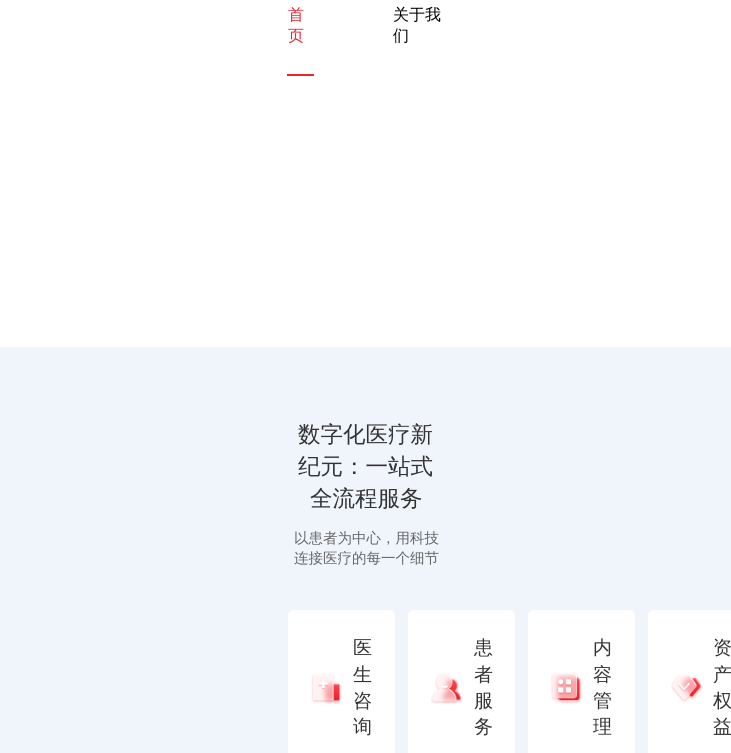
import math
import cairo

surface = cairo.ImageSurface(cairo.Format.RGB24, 731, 753)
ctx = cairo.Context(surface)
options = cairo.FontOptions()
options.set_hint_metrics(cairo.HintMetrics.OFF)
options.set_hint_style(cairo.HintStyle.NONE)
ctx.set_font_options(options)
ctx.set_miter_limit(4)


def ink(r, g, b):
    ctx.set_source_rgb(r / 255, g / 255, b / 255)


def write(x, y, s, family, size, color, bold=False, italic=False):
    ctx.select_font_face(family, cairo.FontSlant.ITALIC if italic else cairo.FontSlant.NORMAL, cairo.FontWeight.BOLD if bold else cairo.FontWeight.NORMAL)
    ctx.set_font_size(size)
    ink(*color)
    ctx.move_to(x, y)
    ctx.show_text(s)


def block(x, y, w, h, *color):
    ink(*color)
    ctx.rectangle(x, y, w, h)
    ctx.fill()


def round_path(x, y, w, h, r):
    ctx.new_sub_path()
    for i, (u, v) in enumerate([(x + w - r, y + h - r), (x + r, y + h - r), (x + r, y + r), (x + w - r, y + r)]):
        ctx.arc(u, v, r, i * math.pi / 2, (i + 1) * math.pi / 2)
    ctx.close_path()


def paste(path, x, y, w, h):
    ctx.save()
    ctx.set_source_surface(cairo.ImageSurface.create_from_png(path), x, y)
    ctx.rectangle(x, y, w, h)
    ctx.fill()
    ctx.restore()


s1 = dict(family="WenQuanYi Zen Hei Medium", size=16, color=(237, 36, 46))
s2 = dict(family="WenQuanYi Zen Hei Medium", size=16, color=(0, 0, 0))
s3 = dict(family="WenQuanYi Zen Hei Medium", size=22.5, color=(51, 51, 51))
s4 = dict(family="WenQuanYi Zen Hei Medium", size=14.5, color=(102, 102, 102))
s5 = dict(family="WenQuanYi Zen Hei Medium", size=19, color=(51, 51, 51))

ink(255, 255, 255)
ctx.paint()
write(288, 20, "首", **s1)
write(288, 41, "页", **s1)
block(287, 74, 27, 2, 237, 36, 46)
write(393, 20, "关于我", **s2)
write(393, 41, "们", **s2)
block(0, 347, 731, 406, 240, 244, 251)
write(298, 442, "数字化医疗新", **s3)
write(298, 474, "纪元：一站式", **s3)
write(310, 506, "全流程服务", **s3)
write(294, 543, "以患者为中心，用科技", **s4)
write(294, 563, "连接医疗的每一个细节", **s4)
ink(255, 255, 255)
round_path(288, 610, 107, 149, 6)
ctx.fill()
write(353, 654, "医", **s5)
paste("pic1.png", 311, 674, 31, 30)
write(353, 681, "生", **s5)
write(353, 707, "咨", **s5)
write(353, 733, "询", **s5)
ink(255, 255, 255)
round_path(408, 610, 107, 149, 6)
ctx.fill()
write(474, 654, "患", **s5)
paste("pic2.png", 431, 672, 32, 32)
write(474, 681, "者", **s5)
write(474, 707, "服", **s5)
write(474, 733, "务", **s5)
ink(255, 255, 255)
round_path(528, 610, 107, 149, 6)
ctx.fill()
write(593, 654, "内", **s5)
paste("pic3.png", 551, 672, 32, 32)
write(593, 681, "容", **s5)
write(593, 707, "管", **s5)
write(593, 733, "理", **s5)
ink(255, 255, 255)
round_path(648, 610, 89, 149, 6)
ctx.fill()
write(713, 654, "资", **s5)
paste("pic4.png", 671, 674, 32, 29)
write(713, 681, "产", **s5)
write(713, 707, "权", **s5)
write(713, 733, "益", **s5)
surface.write_to_png("screenshot.png")
